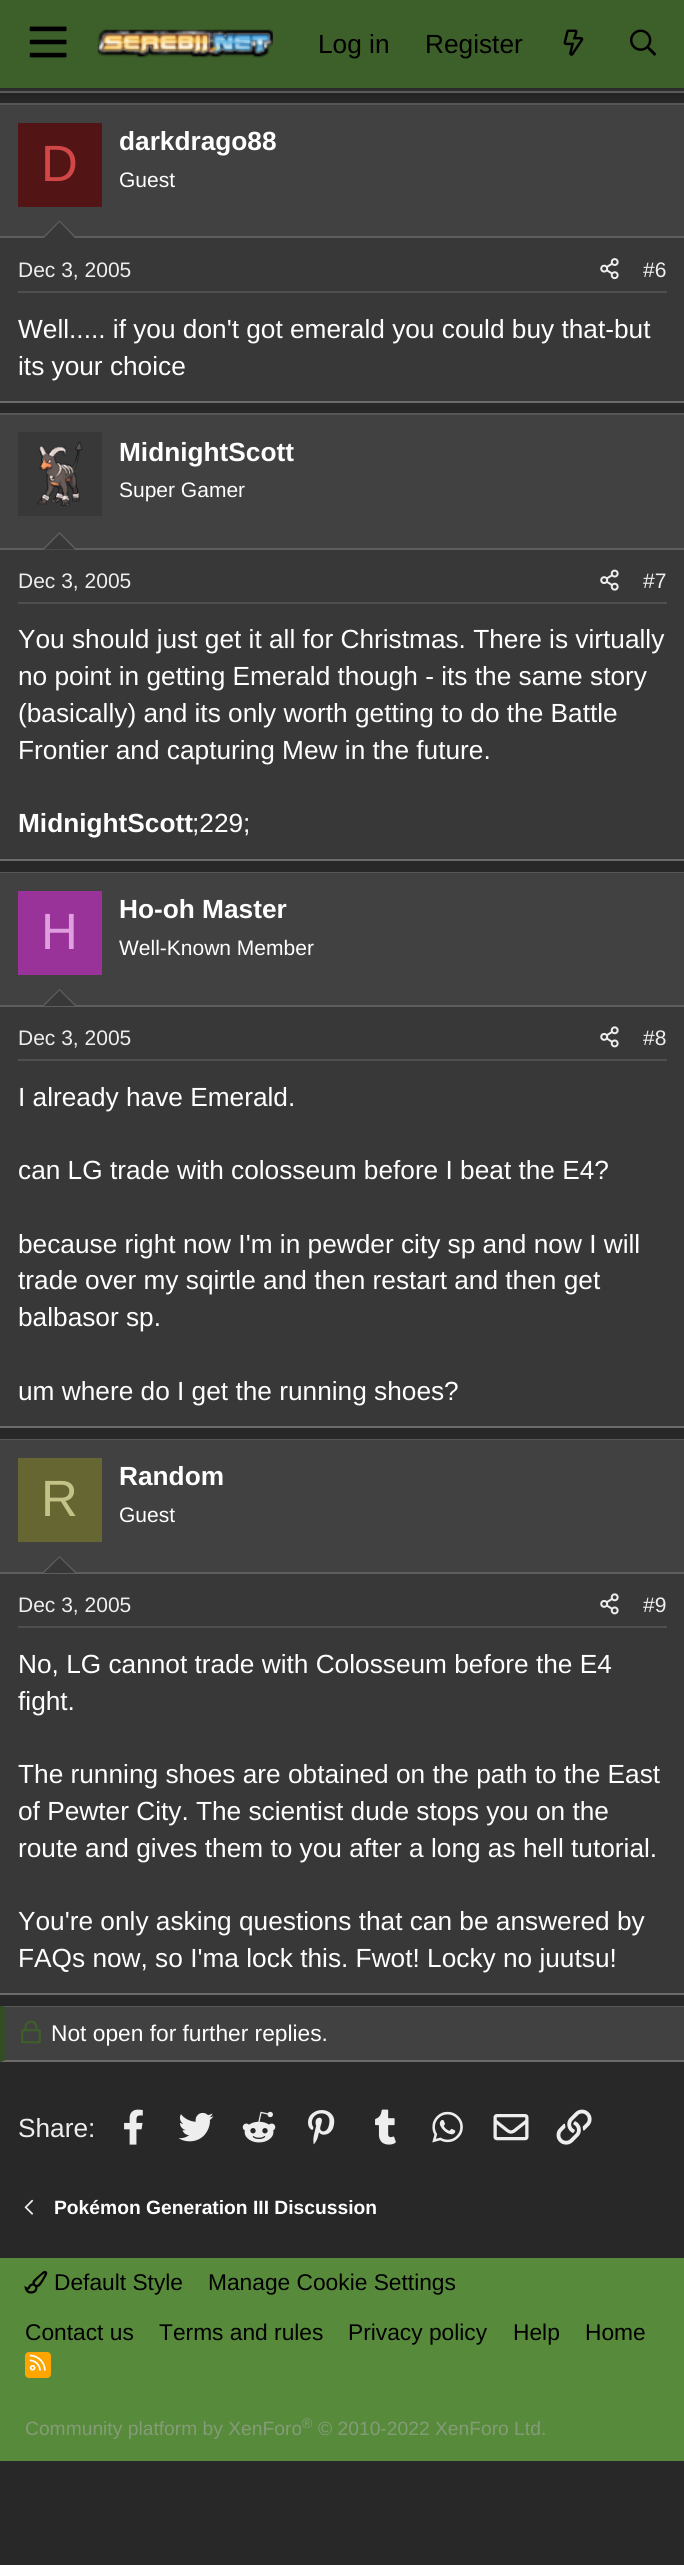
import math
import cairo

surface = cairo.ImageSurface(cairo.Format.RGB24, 684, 2565)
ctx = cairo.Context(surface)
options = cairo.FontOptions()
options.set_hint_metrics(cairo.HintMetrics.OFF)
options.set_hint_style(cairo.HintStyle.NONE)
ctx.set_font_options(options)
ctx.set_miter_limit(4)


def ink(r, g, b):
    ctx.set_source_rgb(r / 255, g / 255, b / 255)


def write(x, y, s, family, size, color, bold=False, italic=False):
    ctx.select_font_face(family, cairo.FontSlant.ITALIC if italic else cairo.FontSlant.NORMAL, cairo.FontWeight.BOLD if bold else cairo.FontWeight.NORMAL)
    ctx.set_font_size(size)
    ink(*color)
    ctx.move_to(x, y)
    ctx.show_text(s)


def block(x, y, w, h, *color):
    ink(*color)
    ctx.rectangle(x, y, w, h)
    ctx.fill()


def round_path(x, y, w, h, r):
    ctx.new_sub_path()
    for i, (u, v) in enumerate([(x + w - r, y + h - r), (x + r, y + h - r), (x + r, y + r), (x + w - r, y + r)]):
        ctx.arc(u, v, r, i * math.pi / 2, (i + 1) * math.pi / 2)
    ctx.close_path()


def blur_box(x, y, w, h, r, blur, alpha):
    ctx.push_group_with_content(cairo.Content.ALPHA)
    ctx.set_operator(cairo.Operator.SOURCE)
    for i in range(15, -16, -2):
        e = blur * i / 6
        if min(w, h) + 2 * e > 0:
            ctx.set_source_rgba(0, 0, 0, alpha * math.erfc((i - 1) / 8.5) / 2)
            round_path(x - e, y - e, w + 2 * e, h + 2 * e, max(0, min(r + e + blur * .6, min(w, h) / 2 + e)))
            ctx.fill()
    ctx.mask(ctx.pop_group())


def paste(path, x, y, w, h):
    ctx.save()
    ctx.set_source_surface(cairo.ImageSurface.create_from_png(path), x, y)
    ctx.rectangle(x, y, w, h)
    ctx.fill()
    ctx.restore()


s1 = dict(family="Liberation Sans", size=26.25, color=(0, 0, 0))
s2 = dict(family="Liberation Sans", size=51, color=(209, 71, 71))
s3 = dict(family="Liberation Sans", size=26.25, color=(255, 255, 255), bold=True)
s4 = dict(family="Liberation Sans", size=21, color=(255, 255, 255))
s5 = dict(family="Liberation Sans", size=21, color=(238, 238, 238))
s6 = dict(family="Liberation Sans", size=26.25, color=(255, 255, 255))
s7 = dict(family="Liberation Sans", size=51, color=(223, 159, 223))
s8 = dict(family="Liberation Sans", size=51, color=(195, 195, 136))
s9 = dict(family="Liberation Sans", size=22.75, color=(255, 255, 255))
s10 = dict(family="Liberation Sans", size=26.25, color=(238, 238, 238))
s11 = dict(family="Liberation Sans", size=19.25, color=(255, 255, 255), bold=True)
s12 = dict(family="Liberation Sans", size=22.75, color=(0, 0, 0))
s13 = dict(family="Liberation Sans", size=19.25, color=(132, 155, 119))
s14 = dict(family="Liberation Sans", size=14, color=(132, 155, 119))

ink(40, 40, 40)
ctx.paint()
block(0, 88, 684, 3, 56, 56, 56)
block(0, 91, 684, 2, 107, 107, 107)
block(0, 103, 684, 2, 87, 87, 87)
block(0, 105, 684, 131, 65, 65, 65)
ink(0, 0, 0)
blur_box(-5, -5, 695, 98, 0, 7, 0.3)
block(0, 0, 684, 88, 61, 95, 41)
paste("pic1.png", 29, 26, 38, 32)
paste("pic2.png", 97, 29, 176, 29)
write(318, 53, "Log in", **s1)
write(425, 53, "Register", **s1)
paste("pic3.png", 563, 29, 21, 27)
paste("pic4.png", 630, 29, 27, 27)
block(0, 238, 684, 163, 56, 56, 56)
block(0, 401, 684, 2, 107, 107, 107)
block(0, 236, 684, 2, 94, 94, 94)
block(18, 123, 84, 84, 82, 20, 20)
write(41, 181, "D", **s2)
write(119, 150, "darkdrago88", **s3)
write(119, 187, "Guest", **s4)
ink(94, 94, 94)
ctx.new_path()
ctx.move_to(77, 238)
ctx.line_to(42, 238)
ctx.line_to(59.5, 220.5)
ctx.close_path()
ctx.fill()
ink(56, 56, 56)
ctx.new_path()
ctx.move_to(75, 238)
ctx.line_to(44, 238)
ctx.line_to(59.5, 222)
ctx.close_path()
ctx.fill()
block(18, 291, 649, 2, 79, 79, 79)
write(18, 277, "Dec 3, 2005", **s5)
paste("pic5.png", 600, 258, 19, 22)
write(643, 277, "#6", **s5)
write(18, 338, "Well..... if you don't got emerald you could buy that-but", **s6)
write(18, 375, "its your choice", **s6)
block(0, 550, 684, 309, 56, 56, 56)
block(0, 413, 684, 2, 87, 87, 87)
block(0, 859, 684, 2, 107, 107, 107)
block(0, 415, 684, 133, 65, 65, 65)
block(0, 548, 684, 2, 94, 94, 94)
block(18, 432, 84, 84, 56, 56, 56)
paste("pic6.png", 37, 441, 46, 66)
write(119, 461, "MidnightScott", **s3)
write(119, 497, "Super Gamer", **s4)
ink(94, 94, 94)
ctx.new_path()
ctx.move_to(77, 549.5)
ctx.line_to(42, 549.5)
ctx.line_to(59.5, 532)
ctx.close_path()
ctx.fill()
ink(56, 56, 56)
ctx.new_path()
ctx.move_to(75, 549.5)
ctx.line_to(44, 549.5)
ctx.line_to(59.5, 534)
ctx.close_path()
ctx.fill()
block(18, 602, 649, 2, 79, 79, 79)
write(18, 588, "Dec 3, 2005", **s5)
paste("pic7.png", 600, 569, 19, 22)
write(643, 588, "#7", **s5)
write(18, 648, "You should just get it all for Christmas. There is virtually", **s6)
write(18, 685, "no point in getting Emerald though - its the same story", **s6)
write(18, 722, "(basically) and its only worth getting to do the Battle", **s6)
write(18, 759, "Frontier and capturing Mew in the future.", **s6)
write(18, 832, "MidnightScott", **s3)
write(192, 832, ";229;", **s6)
block(0, 1007, 684, 419, 56, 56, 56)
block(0, 872, 684, 1, 87, 87, 87)
block(0, 1426, 684, 2, 107, 107, 107)
block(0, 873, 684, 132, 65, 65, 65)
block(0, 1005, 684, 2, 94, 94, 94)
block(18, 891, 84, 84, 153, 51, 153)
write(41, 949, "H", **s7)
write(119, 918, "Ho-oh Master", **s3)
write(119, 955, "Well-Known Member", **s4)
ink(94, 94, 94)
ctx.new_path()
ctx.move_to(77, 1006)
ctx.line_to(42, 1006)
ctx.line_to(59.5, 989)
ctx.close_path()
ctx.fill()
ink(56, 56, 56)
ctx.new_path()
ctx.move_to(75, 1006)
ctx.line_to(44, 1006)
ctx.line_to(59.5, 990.5)
ctx.close_path()
ctx.fill()
block(18, 1059, 649, 2, 79, 79, 79)
write(18, 1045, "Dec 3, 2005", **s5)
paste("pic8.png", 600, 1026, 19, 22)
write(643, 1045, "#8", **s5)
write(18, 1106, "I already have Emerald.", **s6)
write(18, 1179, "can LG trade with colosseum before I beat the E4?", **s6)
write(18, 1253, "because right now I'm in pewder city sp and now I will", **s6)
write(18, 1289, "trade over my sqirtle and then restart and then get", **s6)
write(18, 1326, "balbasor sp.", **s6)
write(18, 1400, "um where do I get the running shoes?", **s6)
block(0, 1574, 684, 419, 56, 56, 56)
block(0, 1439, 684, 1, 87, 87, 87)
block(0, 1993, 684, 2, 107, 107, 107)
block(0, 1440, 684, 132, 65, 65, 65)
block(0, 1572, 684, 2, 94, 94, 94)
block(18, 1458, 84, 84, 102, 102, 51)
write(41, 1516, "R", **s8)
write(119, 1485, "Random", **s3)
write(119, 1522, "Guest", **s4)
ink(94, 94, 94)
ctx.new_path()
ctx.move_to(77, 1573)
ctx.line_to(42, 1573)
ctx.line_to(59.5, 1556)
ctx.close_path()
ctx.fill()
ink(56, 56, 56)
ctx.new_path()
ctx.move_to(75, 1573)
ctx.line_to(44, 1573)
ctx.line_to(59.5, 1557.5)
ctx.close_path()
ctx.fill()
block(18, 1626, 649, 2, 79, 79, 79)
write(18, 1612, "Dec 3, 2005", **s5)
paste("pic8.png", 600, 1593, 19, 22)
write(643, 1612, "#9", **s5)
write(18, 1673, "No, LG cannot trade with Colosseum before the E4", **s6)
write(18, 1710, "fight.", **s6)
write(18, 1783, "The running shoes are obtained on the path to the East", **s6)
write(18, 1820, "of Pewter City. The scientist dude stops you on the", **s6)
write(18, 1857, "route and gives them to you after a long as hell tutorial.", **s6)
write(18, 1930, "You're only asking questions that can be answered by", **s6)
write(18, 1967, "FAQs now, so I'ma lock this. Fwot! Locky no juutsu!", **s6)
block(0, 2006, 684, 56, 65, 65, 65)
ink(87, 87, 87)
ctx.new_path()
ctx.move_to(0, 2006)
ctx.line_to(684, 2006)
ctx.line_to(684, 2007)
ctx.line_to(5, 2007)
ctx.close_path()
ctx.fill()
ink(107, 107, 107)
ctx.new_path()
ctx.move_to(684, 2062)
ctx.line_to(0, 2062)
ctx.line_to(5, 2060)
ctx.line_to(684, 2060)
ctx.close_path()
ctx.fill()
ink(51, 78, 36)
ctx.new_path()
ctx.move_to(0, 2062)
ctx.line_to(0, 2006)
ctx.line_to(5, 2007)
ctx.line_to(5, 2060)
ctx.close_path()
ctx.fill()
paste("pic9.png", 21, 2020, 20, 24)
write(51, 2041, "Not open for further replies.", **s9)
write(18, 2137, "Share:", **s10)
paste("pic10.png", 124, 2109, 19, 36)
paste("pic11.png", 178, 2112, 36, 30)
paste("pic12.png", 242, 2111, 34, 32)
paste("pic13.png", 308, 2110, 27, 35)
paste("pic14.png", 375, 2109, 21, 36)
paste("pic15.png", 432, 2111, 31, 32)
paste("pic16.png", 493, 2114, 36, 27)
paste("pic17.png", 556, 2109, 36, 36)
paste("pic18.png", 24, 2199, 10, 16)
write(54, 2214, "Pokémon Generation III Discussion", **s11)
block(0, 2258, 684, 203, 88, 138, 59)
paste("pic19.png", 24, 2270, 24, 24)
write(54, 2290, "Default Style", **s12)
write(208, 2290, "Manage Cookie Settings", **s12)
write(25, 2340, "Contact us", **s12)
write(159, 2340, "Terms and rules", **s12)
write(348, 2340, "Privacy policy", **s12)
write(513, 2340, "Help", **s12)
write(585, 2340, "Home", **s12)
ink(255, 165, 0)
round_path(25, 2352, 26, 26, 4)
ctx.fill()
paste("pic20.png", 29, 2354, 17, 17)
write(25, 2435, "Community platform by XenForo", **s13)
write(302, 2428, "®", **s14)
write(318, 2435, "© 2010-2022 XenForo Ltd.", **s13)
surface.write_to_png("screenshot.png")
